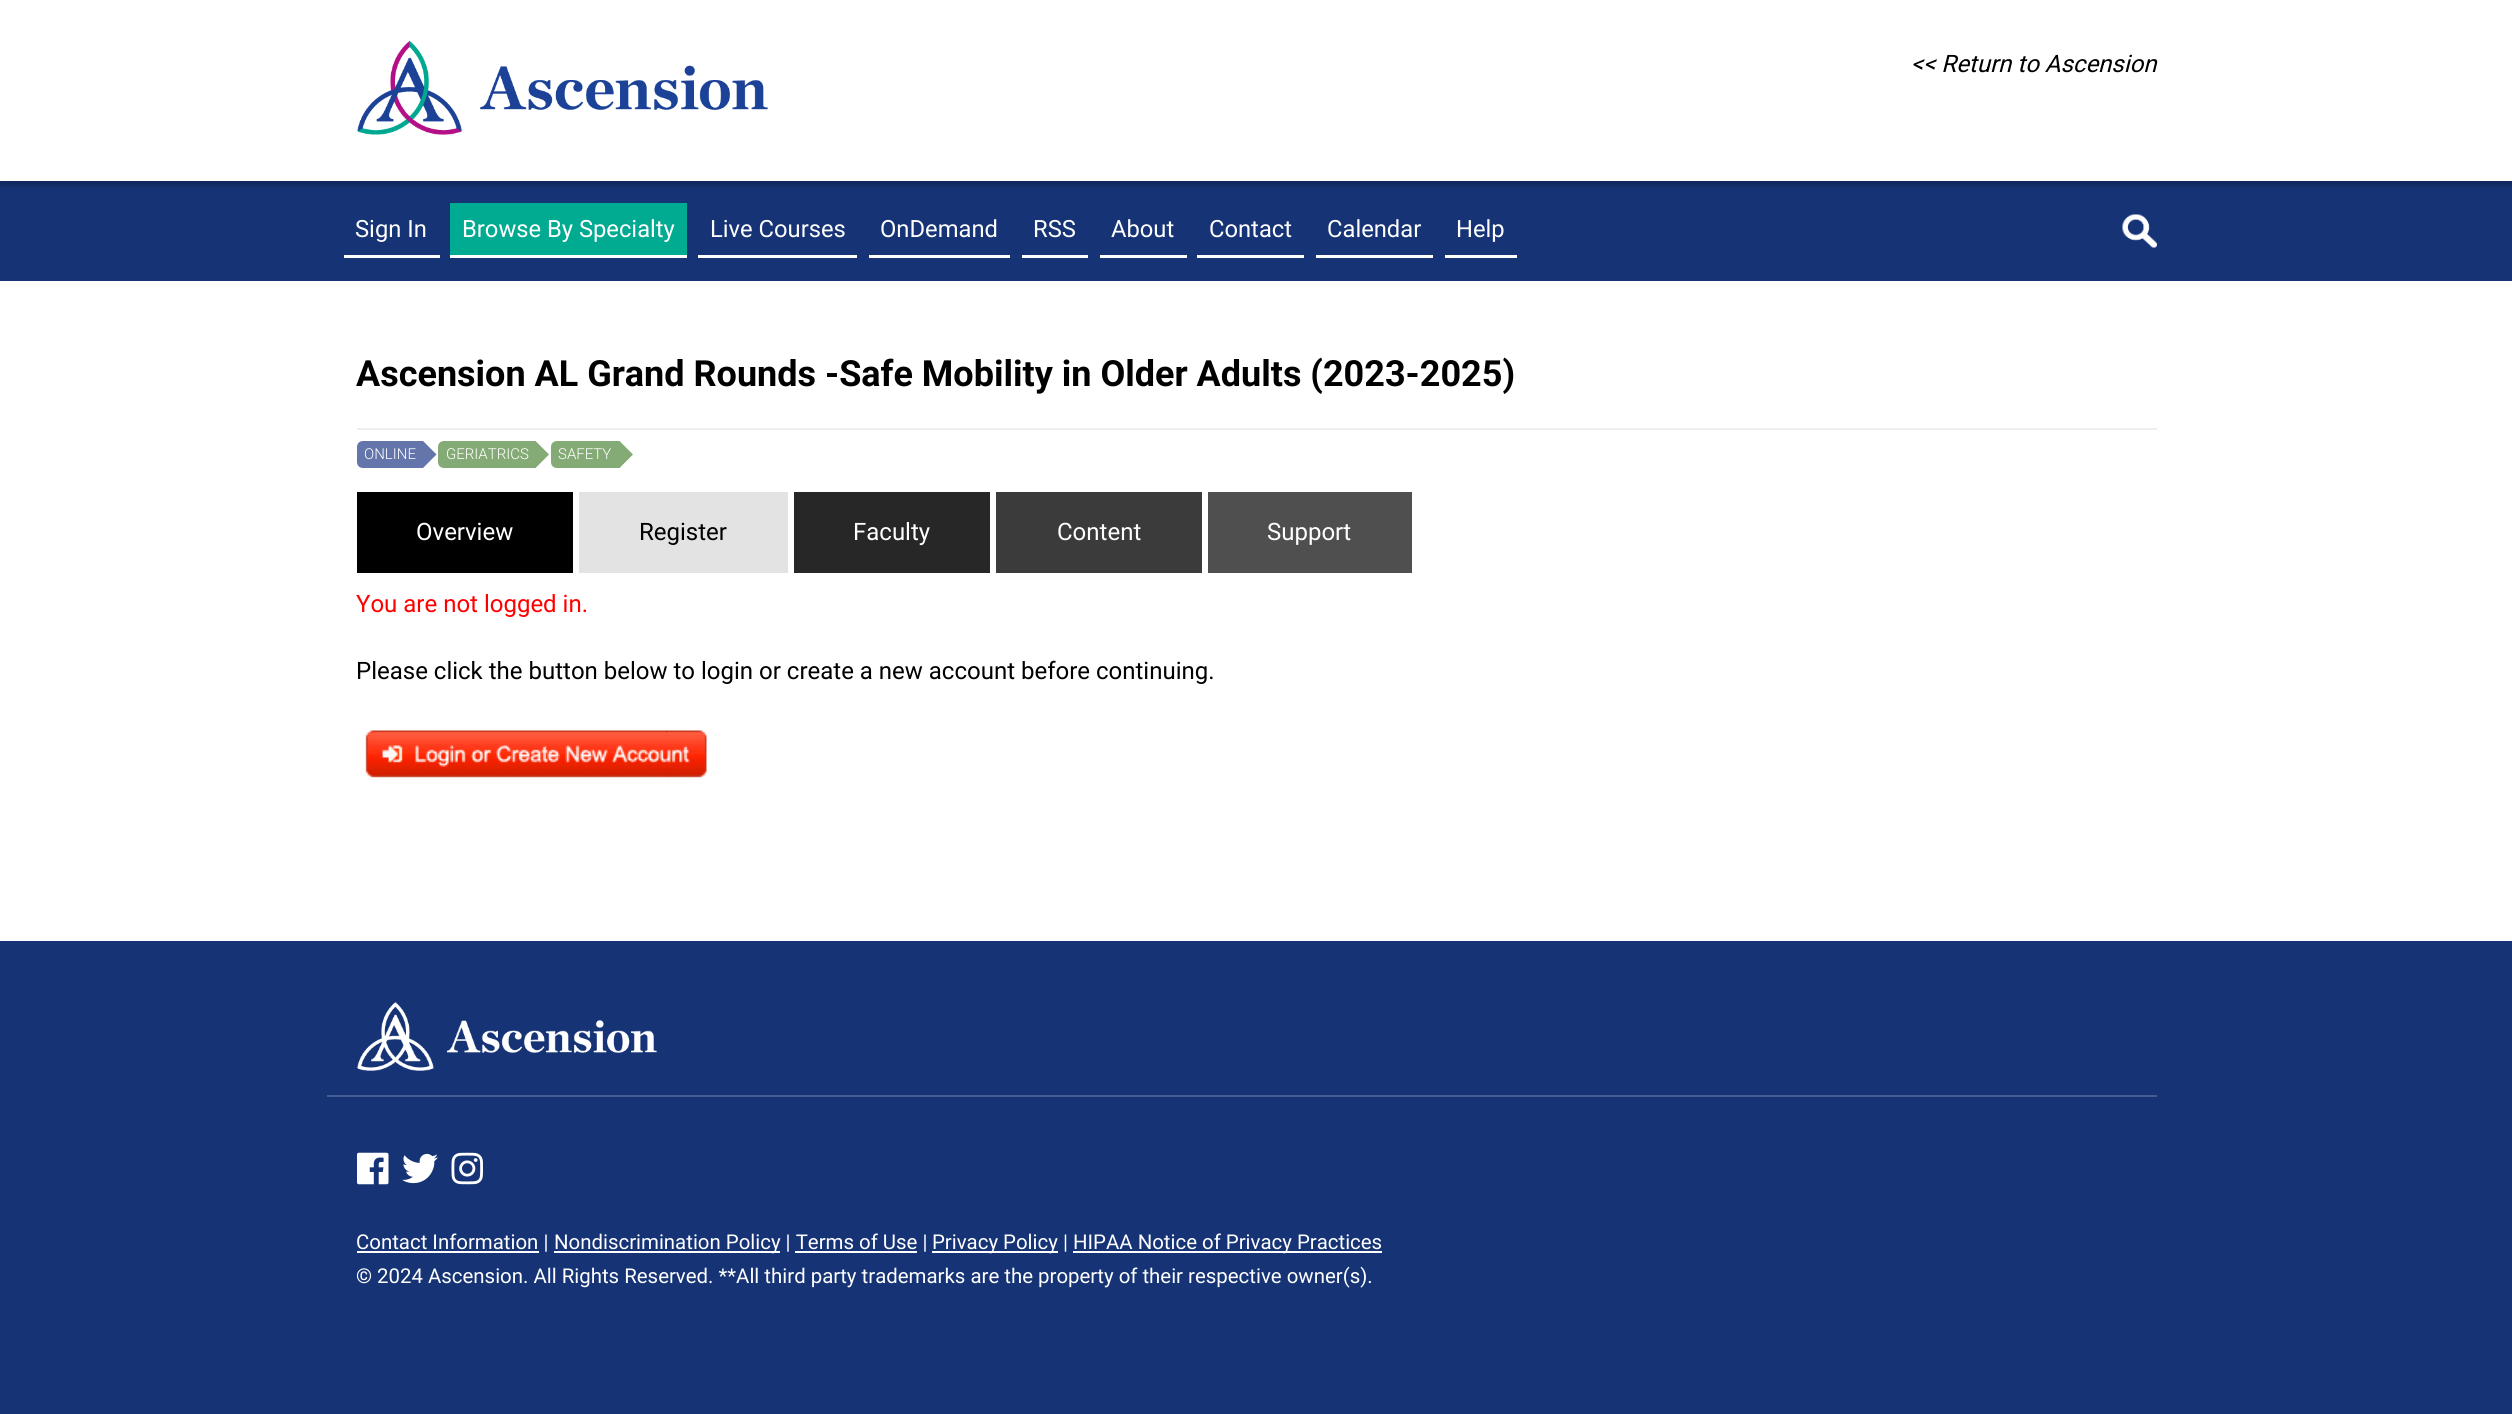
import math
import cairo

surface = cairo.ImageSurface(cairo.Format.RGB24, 2512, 1414)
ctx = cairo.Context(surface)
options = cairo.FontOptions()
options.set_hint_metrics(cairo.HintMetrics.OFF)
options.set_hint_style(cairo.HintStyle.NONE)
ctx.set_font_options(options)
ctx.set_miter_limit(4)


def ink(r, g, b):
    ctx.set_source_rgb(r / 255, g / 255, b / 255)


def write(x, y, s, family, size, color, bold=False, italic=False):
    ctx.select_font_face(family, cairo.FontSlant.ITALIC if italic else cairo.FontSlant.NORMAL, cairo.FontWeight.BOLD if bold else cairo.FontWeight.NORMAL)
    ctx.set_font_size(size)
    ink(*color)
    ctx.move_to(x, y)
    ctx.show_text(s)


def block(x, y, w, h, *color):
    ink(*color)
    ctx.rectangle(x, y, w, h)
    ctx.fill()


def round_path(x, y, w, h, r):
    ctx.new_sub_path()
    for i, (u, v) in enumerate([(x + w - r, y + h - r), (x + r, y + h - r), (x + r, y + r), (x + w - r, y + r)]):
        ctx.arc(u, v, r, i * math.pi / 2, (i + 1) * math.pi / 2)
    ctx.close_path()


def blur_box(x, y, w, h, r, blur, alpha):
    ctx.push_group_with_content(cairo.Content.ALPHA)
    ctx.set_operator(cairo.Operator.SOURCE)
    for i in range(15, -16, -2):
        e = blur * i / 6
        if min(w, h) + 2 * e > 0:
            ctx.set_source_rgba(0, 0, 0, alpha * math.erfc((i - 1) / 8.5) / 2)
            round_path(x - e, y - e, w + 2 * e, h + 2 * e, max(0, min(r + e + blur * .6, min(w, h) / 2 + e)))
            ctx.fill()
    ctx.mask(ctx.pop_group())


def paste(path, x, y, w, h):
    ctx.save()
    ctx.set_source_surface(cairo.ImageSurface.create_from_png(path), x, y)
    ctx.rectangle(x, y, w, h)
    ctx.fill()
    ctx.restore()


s1 = dict(family="Roboto", size=24, color=(0, 0, 0), italic=True)
s2 = dict(family="Roboto", size=23.75, color=(255, 255, 255))
s3 = dict(family="Roboto", size=36, color=(0, 0, 0), bold=True)
s4 = dict(family="Roboto Light", size=15, color=(255, 255, 255))
s5 = dict(family="Roboto", size=24, color=(255, 255, 255))
s6 = dict(family="Roboto", size=24, color=(0, 0, 0))
s7 = dict(family="Roboto", size=24, color=(255, 0, 0))
s8 = dict(family="Roboto", size=20.4, color=(255, 255, 255))

ink(255, 255, 255)
ctx.paint()
block(0, 181, 2512, 100, 21, 51, 117)
ctx.save()
ctx.rectangle(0, 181, 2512, 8)
ctx.clip()
ink(0, 0, 0)
blur_box(0, 5, 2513, 180, 0, 3, 0.25)
ctx.restore()
block(0, 180, 2512, 1, 255, 255, 255)
paste("pic1.png", 357, 40, 411, 95)
write(1911, 72, "<< Return to Ascension", **s1)
write(355, 237, "Sign In", **s2)
block(344, 255, 96, 3, 255, 255, 255)
block(450, 203, 237, 52, 0, 171, 145)
write(462, 237, "Browse By Specialty", **s2)
block(450, 255, 237, 3, 255, 255, 255)
write(710, 237, "Live Courses", **s2)
block(698, 255, 159, 3, 255, 255, 255)
write(880, 237, "OnDemand", **s2)
block(869, 255, 141, 3, 255, 255, 255)
write(1033, 237, "RSS", **s2)
block(1022, 255, 66, 3, 255, 255, 255)
write(1111, 237, "About", **s2)
block(1100, 255, 87, 3, 255, 255, 255)
write(1209, 237, "Contact", **s2)
block(1197, 255, 107, 3, 255, 255, 255)
write(1327, 237, "Calendar", **s2)
block(1316, 255, 117, 3, 255, 255, 255)
write(1456, 237, "Help", **s2)
block(1445, 255, 72, 3, 255, 255, 255)
paste("pic2.png", 2122, 214, 35, 34)
write(356, 386, "Ascension AL Grand Rounds -Safe Mobility in Older Adults (2023-2025)", **s3)
block(357, 428, 1800, 2, 238, 238, 238)
ink(99, 117, 171)
ctx.new_path()
ctx.move_to(363, 441)
ctx.line_to(423, 441)
ctx.line_to(423, 468)
ctx.line_to(363, 468)
ctx.curve_to(359.5, 468, 357, 465.5, 357, 462)
ctx.line_to(357, 447)
ctx.curve_to(357, 443.5, 359.5, 441, 363, 441)
ctx.close_path()
ctx.fill()
write(364, 459, "ONLINE", **s4)
ink(99, 117, 171)
ctx.new_path()
ctx.move_to(423, 468)
ctx.line_to(423, 441)
ctx.line_to(436.5, 454.5)
ctx.close_path()
ctx.fill()
ink(132, 171, 117)
ctx.new_path()
ctx.move_to(444, 441)
ctx.line_to(536, 441)
ctx.line_to(536, 468)
ctx.line_to(444, 468)
ctx.curve_to(440.5, 468, 438, 465.5, 438, 462)
ctx.line_to(438, 447)
ctx.curve_to(438, 443.5, 440.5, 441, 444, 441)
ctx.close_path()
ctx.fill()
write(446, 459, "GERIATRICS", **s4)
ink(132, 171, 117)
ctx.new_path()
ctx.move_to(535.5, 468)
ctx.line_to(535.5, 441)
ctx.line_to(549, 454.5)
ctx.close_path()
ctx.fill()
ctx.new_path()
ctx.move_to(557, 441)
ctx.line_to(620, 441)
ctx.line_to(620, 468)
ctx.line_to(557, 468)
ctx.curve_to(553.5, 468, 551, 465.5, 551, 462)
ctx.line_to(551, 447)
ctx.curve_to(551, 443.5, 553.5, 441, 557, 441)
ctx.close_path()
ctx.fill()
write(558, 459, "SAFETY", **s4)
ink(132, 171, 117)
ctx.new_path()
ctx.move_to(619.5, 468)
ctx.line_to(619.5, 441)
ctx.line_to(633, 454.5)
ctx.close_path()
ctx.fill()
block(357, 492, 216, 81, 0, 0, 0)
write(416, 540, "Overview", **s5)
block(579, 492, 209, 81, 227, 227, 227)
write(639, 540, "Register", **s6)
block(794, 492, 196, 81, 39, 39, 39)
write(853, 540, "Faculty", **s5)
block(996, 492, 206, 81, 59, 59, 59)
write(1057, 540, "Content", **s5)
block(1208, 492, 204, 81, 79, 79, 79)
write(1267, 540, "Support", **s5)
write(356, 612, "You are not logged in.", **s7)
write(356, 679, "Please click the button below to login or create a new account before continuing.", **s6)
paste("pic3.png", 365, 730, 342, 48)
block(0, 941, 2512, 473, 21, 51, 117)
block(327, 1095, 1830, 2, 68, 92, 145)
paste("pic4.png", 357, 1002, 300, 69)
paste("pic5.png", 357, 1152, 32, 33)
paste("pic6.png", 402, 1153, 36, 31)
paste("pic7.png", 451, 1152, 32, 33)
block(357, 1251, 182, 2, 255, 255, 255)
write(356, 1249, "Contact Information |", **s8)
block(554, 1251, 226, 2, 255, 255, 255)
write(554, 1249, "Nondiscrimination Policy | Terms of Use |", **s8)
block(932, 1251, 126, 2, 255, 255, 255)
write(932, 1249, "Privacy Policy |", **s8)
block(1073, 1251, 309, 2, 255, 255, 255)
write(1073, 1249, "HIPAA Notice of Privacy Practices", **s8)
block(795, 1251, 122, 2, 255, 255, 255)
write(356, 1283, "© 2024 Ascension. All Rights Reserved. **All third party trademarks are the property of their respective owner(s).", **s8)
surface.write_to_png("screenshot.png")
